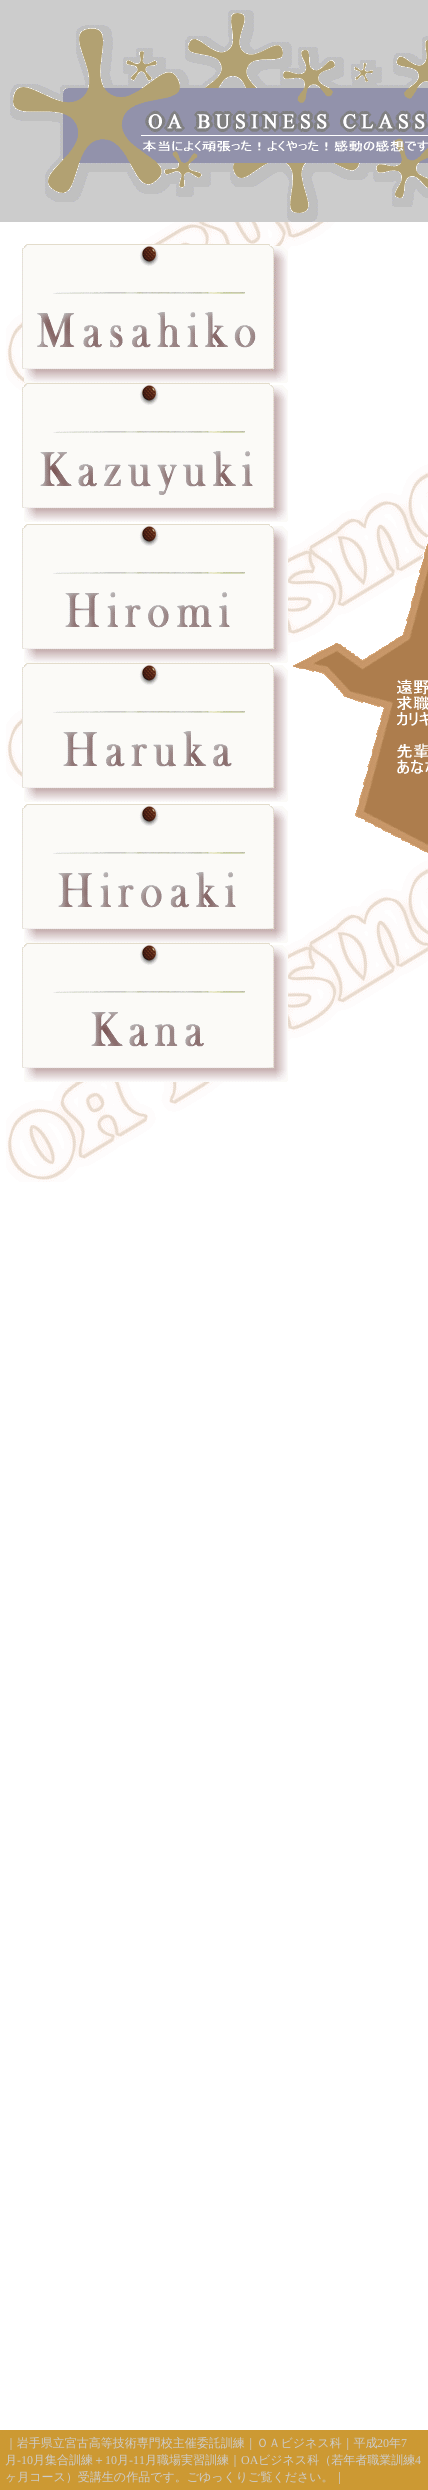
import math
import cairo

surface = cairo.ImageSurface(cairo.Format.RGB24, 428, 2490)
ctx = cairo.Context(surface)
options = cairo.FontOptions()
options.set_hint_metrics(cairo.HintMetrics.OFF)
options.set_hint_style(cairo.HintStyle.NONE)
ctx.set_font_options(options)
ctx.set_miter_limit(4)


def ink(r, g, b):
    ctx.set_source_rgb(r / 255, g / 255, b / 255)


def write(x, y, s, family, size, color, bold=False, italic=False):
    ctx.select_font_face(family, cairo.FontSlant.ITALIC if italic else cairo.FontSlant.NORMAL, cairo.FontWeight.BOLD if bold else cairo.FontWeight.NORMAL)
    ctx.set_font_size(size)
    ink(*color)
    ctx.move_to(x, y)
    ctx.show_text(s)


def block(x, y, w, h, *color):
    ink(*color)
    ctx.rectangle(x, y, w, h)
    ctx.fill()


def paste(path, x, y, w, h):
    ctx.save()
    ctx.set_source_surface(cairo.ImageSurface.create_from_png(path), x, y)
    ctx.rectangle(x, y, w, h)
    ctx.fill()
    ctx.restore()


s1 = dict(family="WenQuanYi Zen Hei Medium", size=12, color=(204, 204, 204))
s2 = dict(family="Liberation Serif", size=12, color=(204, 204, 204))

ink(255, 255, 255)
ctx.paint()
paste("pic1.png", 6, 222, 422, 960)
block(0, 0, 428, 222, 204, 204, 204)
paste("pic2.png", 10, 10, 418, 212)
paste("pic3.png", 22, 244, 266, 139)
paste("pic4.png", 22, 383, 266, 139)
paste("pic5.png", 293, 537, 135, 316)
paste("pic6.png", 22, 524, 266, 139)
paste("pic7.png", 22, 663, 266, 139)
paste("pic8.png", 22, 804, 266, 139)
paste("pic9.png", 22, 943, 266, 139)
block(0, 2430, 428, 60, 204, 153, 51)
write(5, 2447, "｜岩手県立宮古高等技術専門校主催委託訓練｜ＯＡビジネス科｜平成", **s1)
write(377, 2447, "20", **s2)
write(389, 2447, "年", **s1)
write(401, 2447, "7", **s2)
write(5, 2464, "月", **s1)
write(17, 2464, "-10", **s2)
write(33, 2464, "月集合訓練＋", **s1)
write(105, 2464, "10", **s2)
write(117, 2464, "月", **s1)
write(129, 2464, "-11", **s2)
write(145, 2464, "月職場実習訓練｜", **s1)
write(241, 2464, "OA", **s2)
write(258, 2464, "ビジネス科（若年者職業訓練", **s1)
write(415, 2464, "4", **s2)
write(5, 2481, "ヶ月コース）受講生の作品です。ごゆっくりご覧ください。｜", **s1)
surface.write_to_png("screenshot.png")
